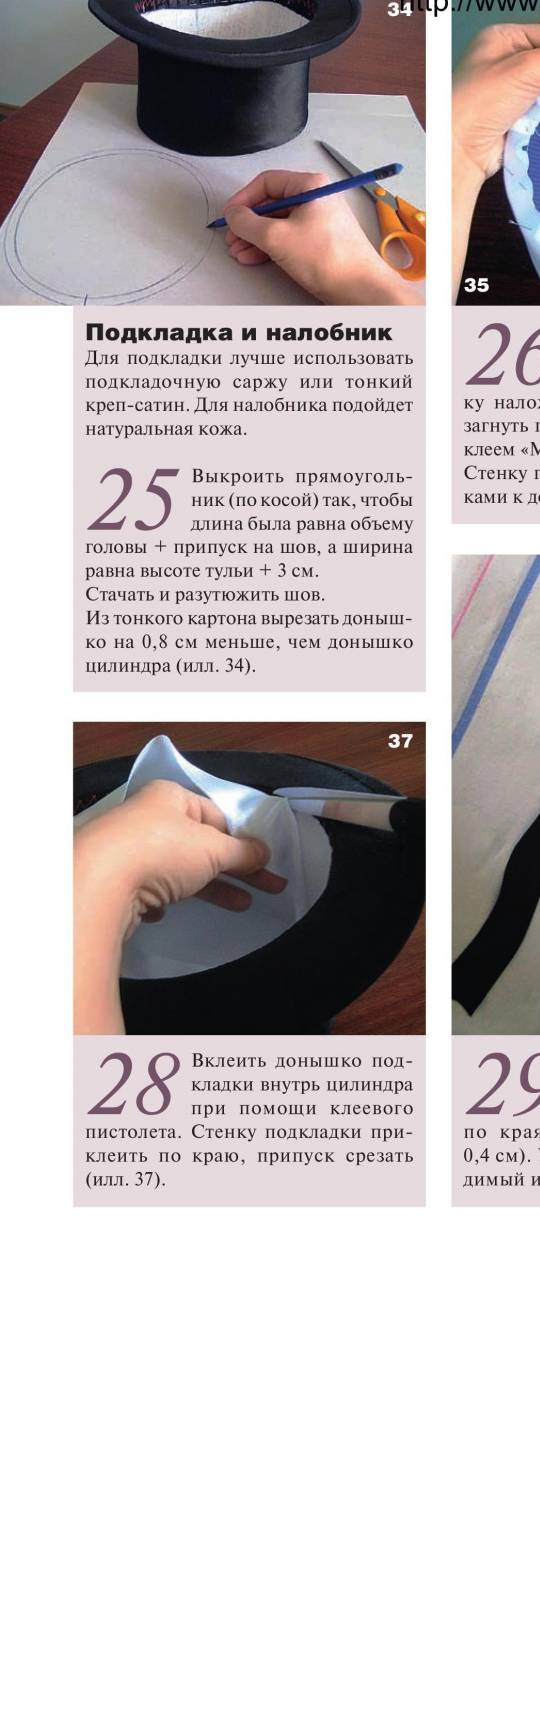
import math
import cairo

surface = cairo.ImageSurface(cairo.Format.RGB24, 540, 1711)
ctx = cairo.Context(surface)
options = cairo.FontOptions()
options.set_hint_metrics(cairo.HintMetrics.OFF)
options.set_hint_style(cairo.HintStyle.NONE)
ctx.set_font_options(options)
ctx.set_miter_limit(4)


def ink(r, g, b):
    ctx.set_source_rgb(r / 255, g / 255, b / 255)


def paste(path, x, y, w, h):
    ctx.save()
    ctx.set_source_surface(cairo.ImageSurface.create_from_png(path), x, y)
    ctx.rectangle(x, y, w, h)
    ctx.fill()
    ctx.restore()


ink(255, 255, 255)
ctx.paint()
paste("pic1.png", 0, 0, 540, 1215)
surface.write_to_png("screenshot.png")
